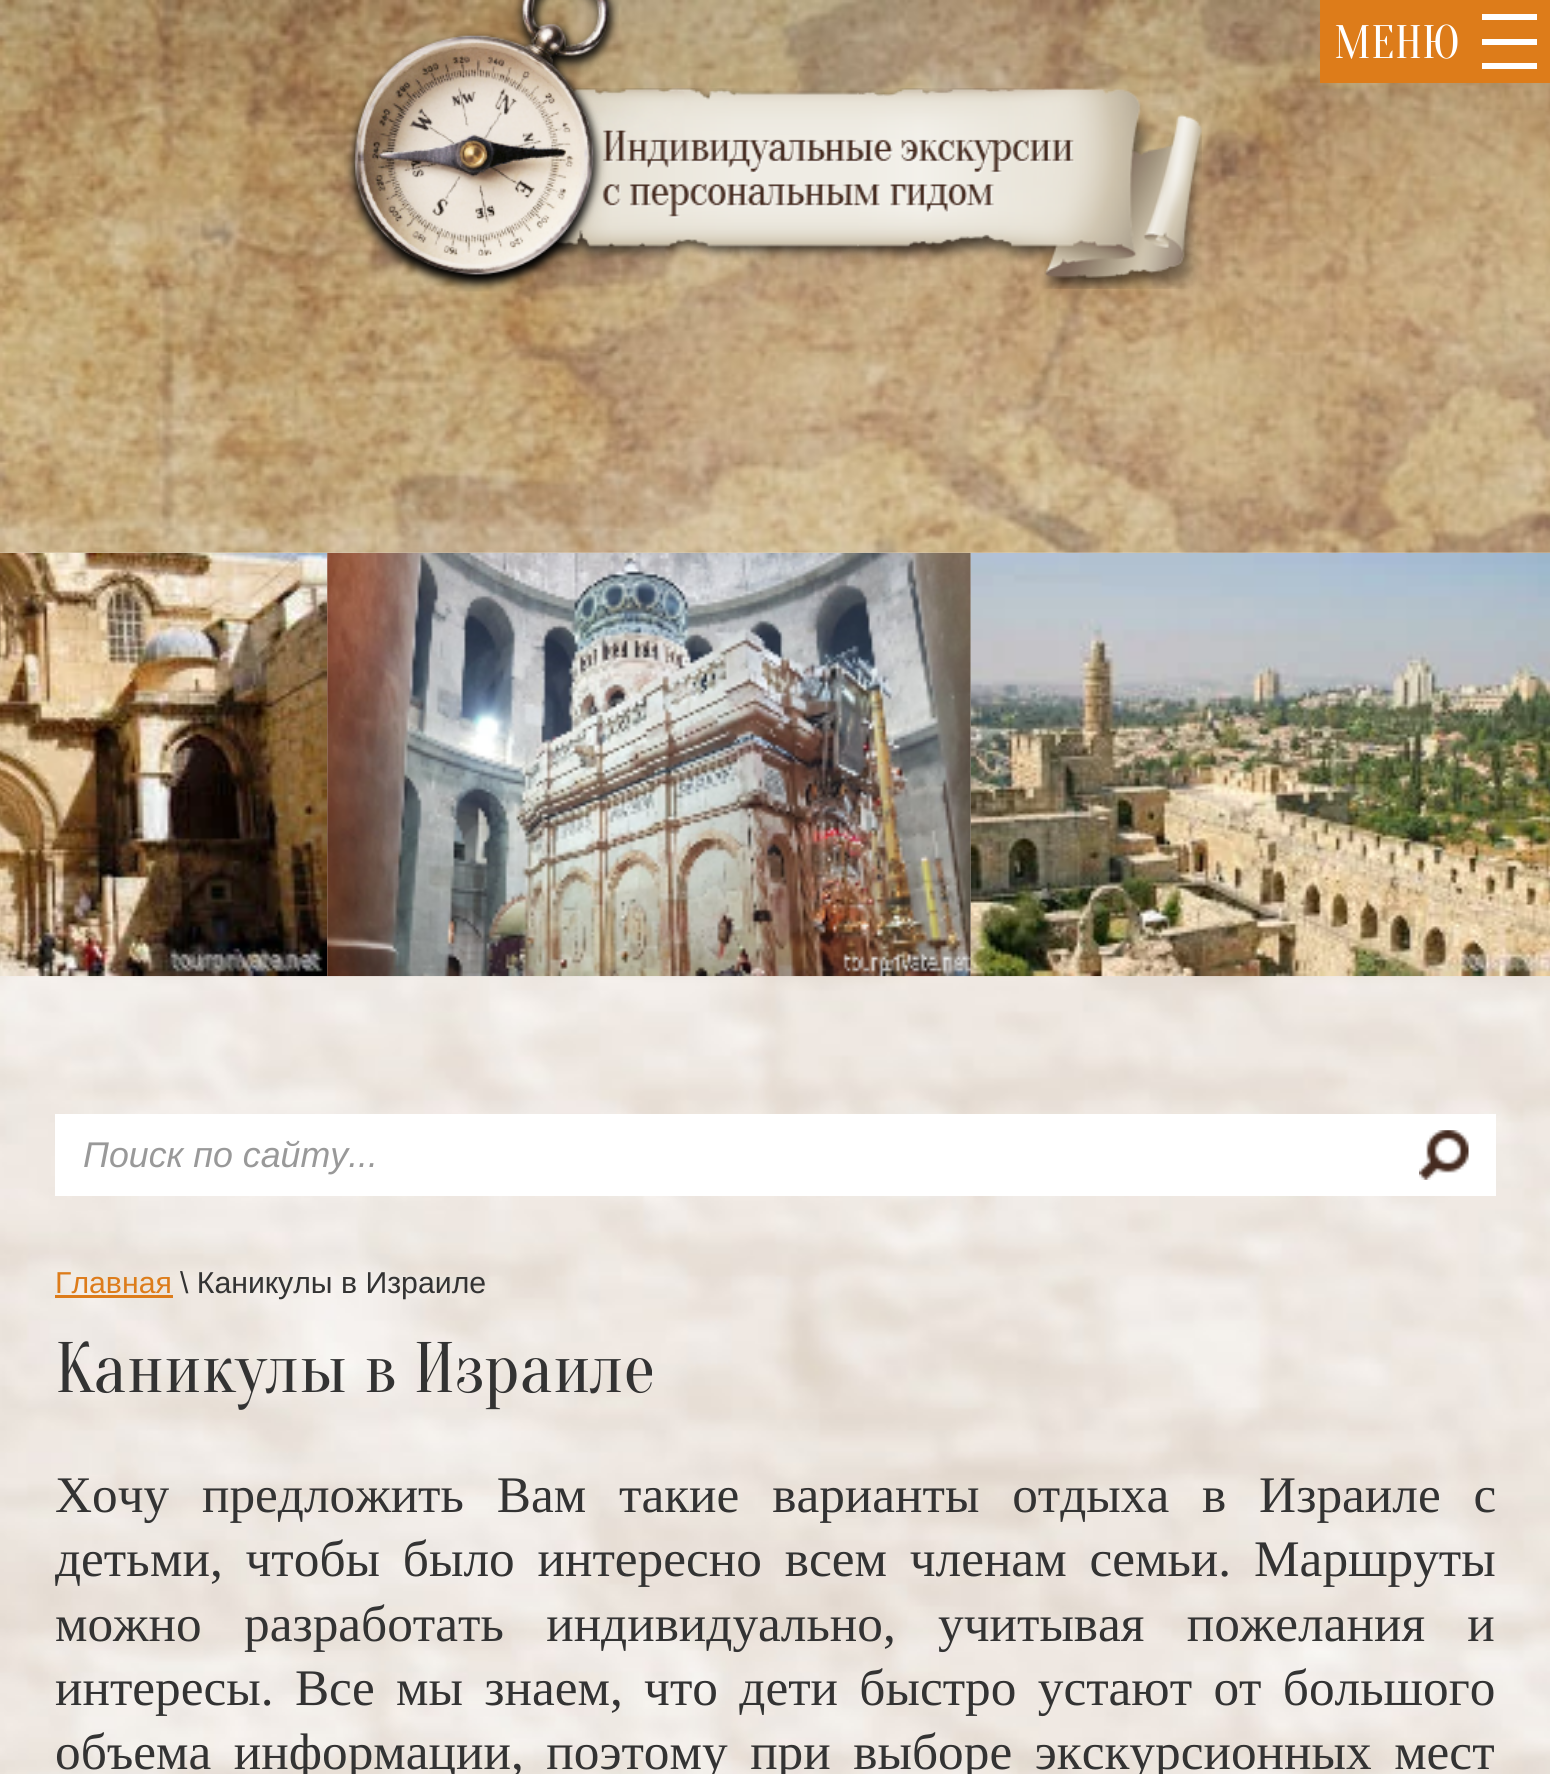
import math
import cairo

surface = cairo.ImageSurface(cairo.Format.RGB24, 1550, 1774)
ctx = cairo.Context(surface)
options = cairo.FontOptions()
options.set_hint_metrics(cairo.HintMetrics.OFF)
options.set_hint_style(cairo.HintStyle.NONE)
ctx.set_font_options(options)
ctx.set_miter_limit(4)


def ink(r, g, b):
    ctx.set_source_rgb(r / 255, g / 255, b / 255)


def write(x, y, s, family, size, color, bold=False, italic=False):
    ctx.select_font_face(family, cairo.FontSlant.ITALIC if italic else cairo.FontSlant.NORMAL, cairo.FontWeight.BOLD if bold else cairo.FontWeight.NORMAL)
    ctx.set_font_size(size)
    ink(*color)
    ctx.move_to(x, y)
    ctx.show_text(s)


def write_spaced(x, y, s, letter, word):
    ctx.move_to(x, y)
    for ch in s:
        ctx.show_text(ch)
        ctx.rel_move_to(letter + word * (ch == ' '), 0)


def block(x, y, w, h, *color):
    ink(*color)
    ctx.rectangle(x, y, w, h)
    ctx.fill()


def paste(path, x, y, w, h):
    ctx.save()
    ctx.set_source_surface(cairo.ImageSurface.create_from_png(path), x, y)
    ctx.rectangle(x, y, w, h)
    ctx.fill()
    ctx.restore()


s1 = dict(family="oranienbaum", size=47, color=(255, 255, 255))
s2 = dict(family="Liberation Sans", size=35.75, color=(153, 153, 153), italic=True)
s3 = dict(family="Liberation Sans", size=30.25, color=(221, 124, 26))
s4 = dict(family="Liberation Sans", size=30.25, color=(51, 51, 51))
s5 = dict(family="oranienbaum", size=71.5, color=(51, 51, 51))
s6 = dict(family="Liberation Serif", size=51.3, color=(51, 51, 51))

ink(255, 255, 255)
ctx.paint()
paste("pic1.png", 0, 552, 1550, 1222)
paste("pic2.png", 0, 0, 1550, 553)
paste("pic4.png", 541, 88, 661, 201)
paste("pic3.png", 344, 0, 275, 292)
block(1320, 0, 230, 83, 221, 124, 26)
block(1482, 14, 55, 6, 255, 255, 255)
write(1334, 58, "МЕНЮ", **s1)
block(1482, 39, 55, 6, 255, 255, 255)
block(1482, 63, 55, 6, 255, 255, 255)
paste("pic5.png", 0, 552, 328, 425)
paste("pic6.png", 327, 552, 644, 425)
paste("pic7.png", 970, 552, 580, 425)
block(55, 1114, 1441, 82, 255, 255, 255)
write(83, 1167, "Поиск по сайту...", **s2)
paste("pic8.png", 1419, 1130, 50, 50)
write(55, 1293, "Главная", **s3)
block(55, 1295, 118, 3, 221, 124, 26)
write(180, 1293, "\\ Каникулы в Израиле", **s4)
write(55, 1392, "Каникулы в Израиле", **s5)
ctx.select_font_face("Liberation Serif")
ctx.set_font_size(51.3)
write_spaced(55, 1512, "Хочу предложить Вам такие варианты отдыха в Израиле с", 0, 20)
write(55, 1576, "деть", **s6)
write_spaced(150, 1576, "ми, чтобы было интересно всем членам семьи.", 0, 10)
write(1254, 1576, "Маршруты", **s6)
write(55, 1641, "можно", **s6)
write_spaced(244, 1641, "разработать индивидуально, учитывая пожелания и", 0, 29.5)
write_spaced(55, 1705, "интересы. Все мы знаем, что дети быстро устают от большого", 0, 8.5)
write_spaced(55, 1769, "объема информации, поэтому при выборе экскурсионных мест", 0, 9.75)
surface.write_to_png("screenshot.png")
